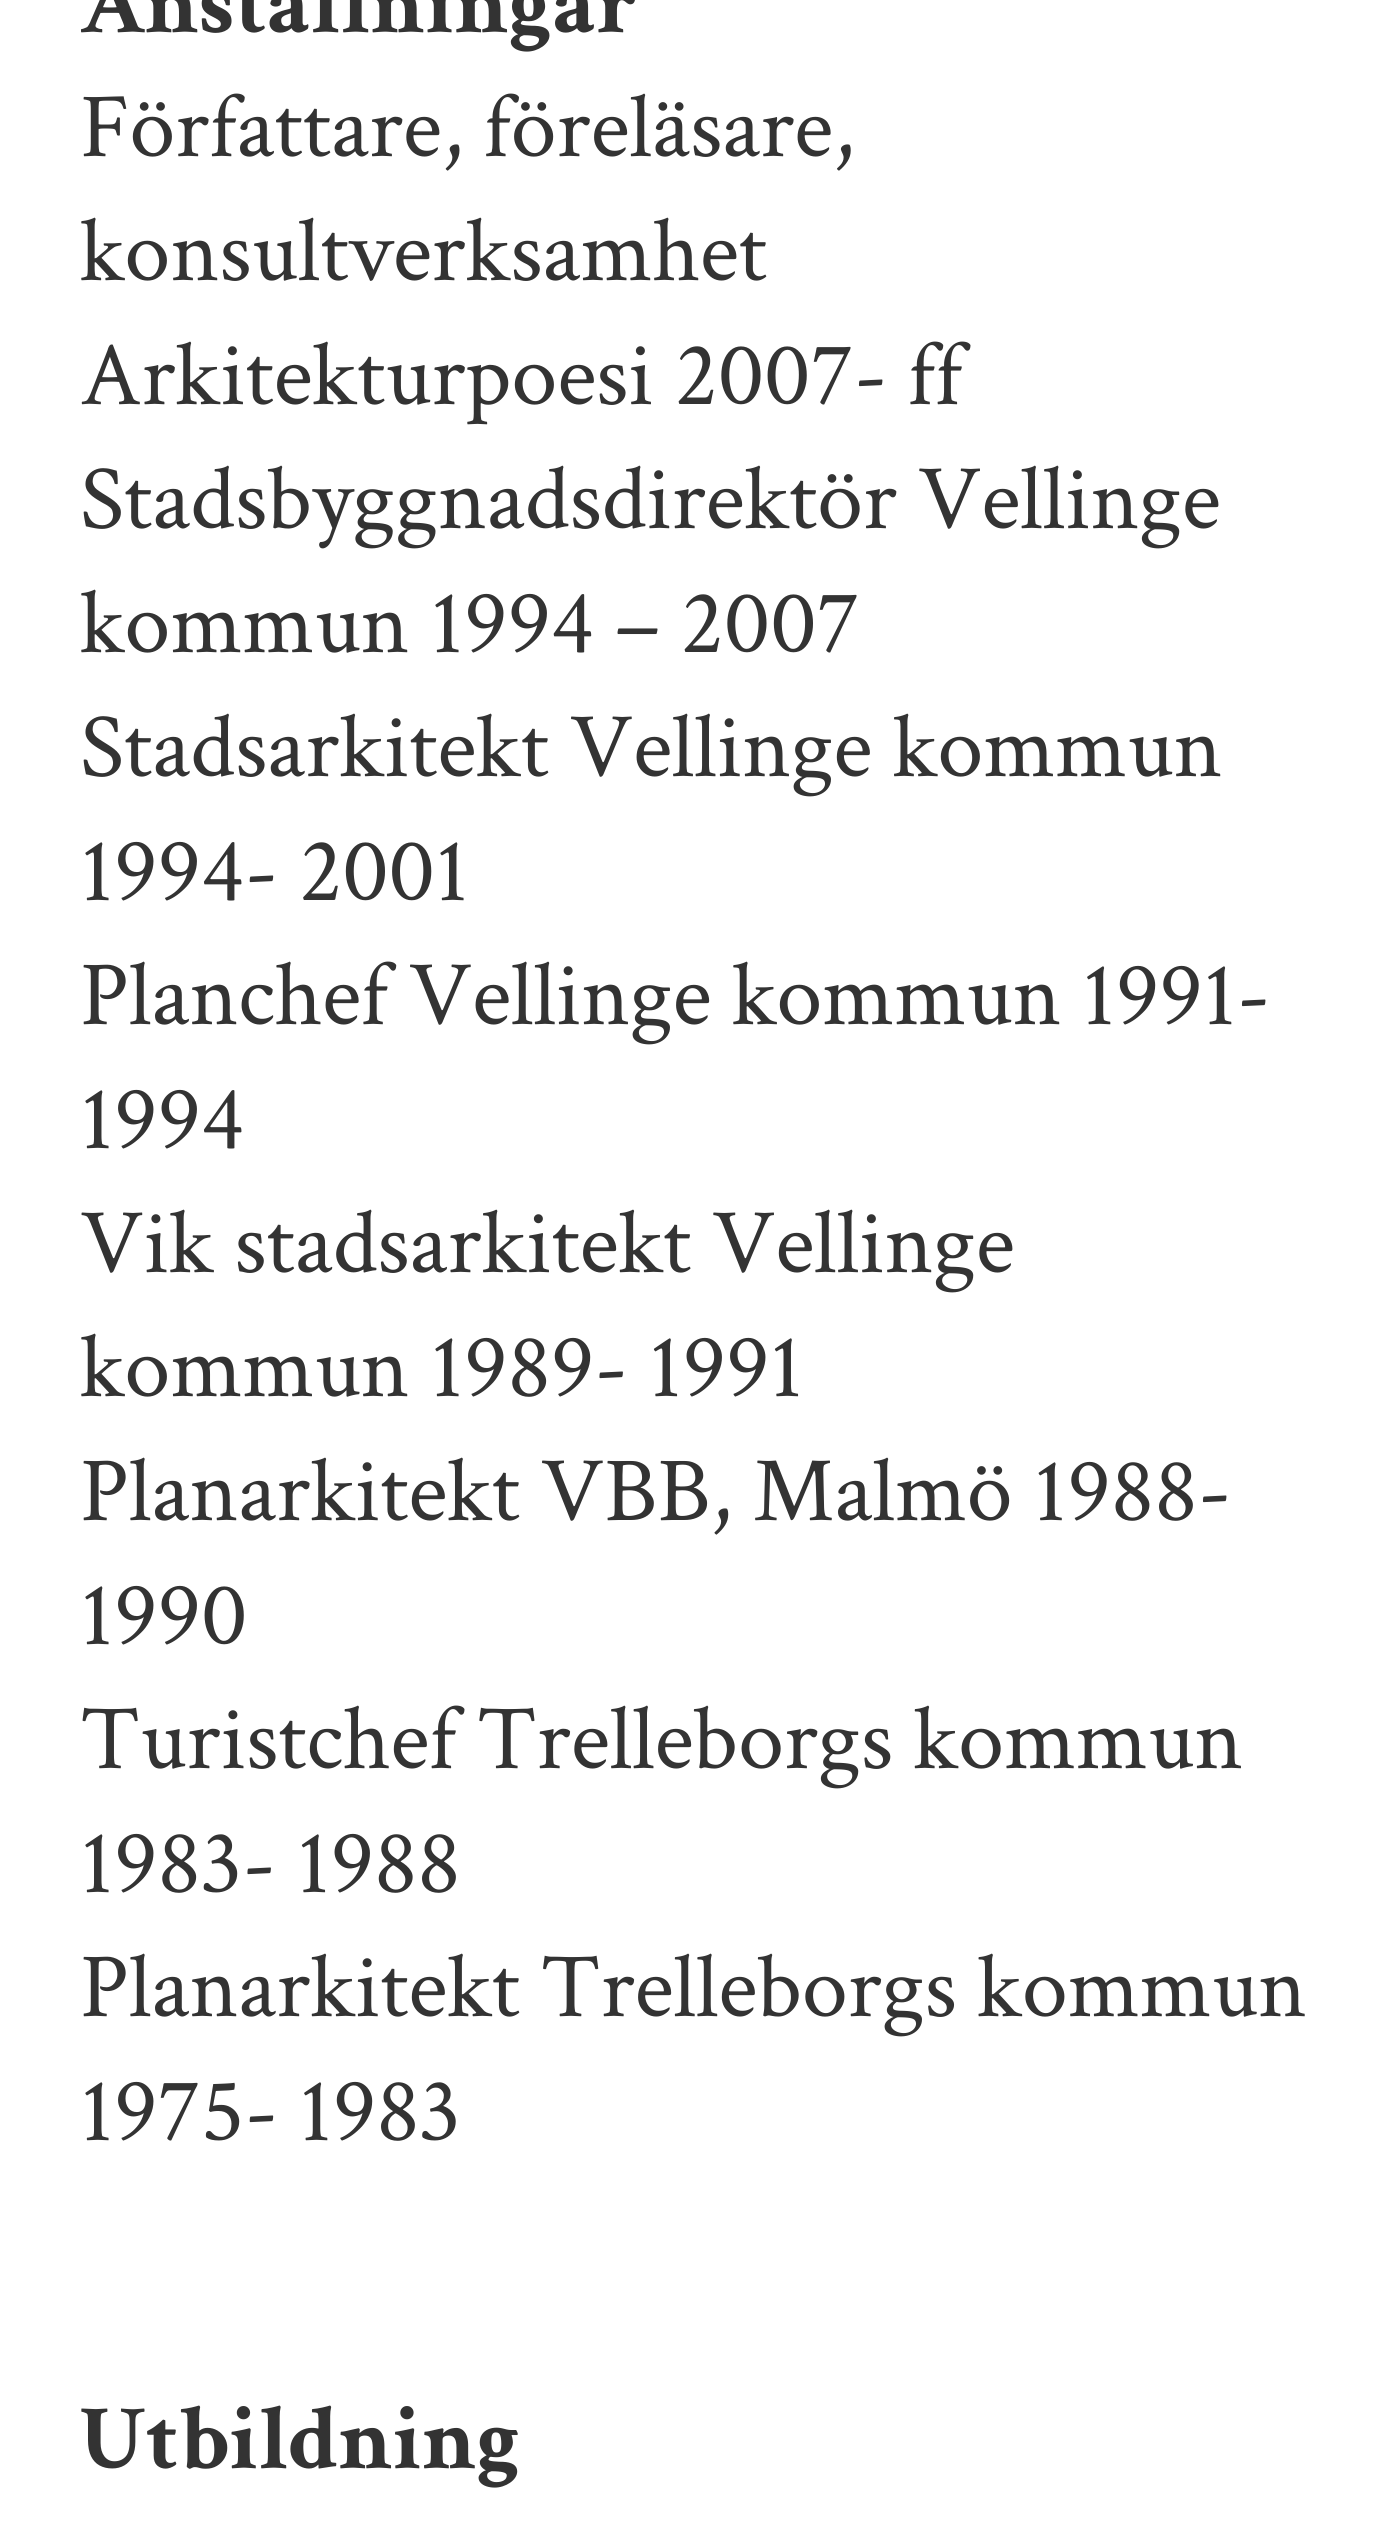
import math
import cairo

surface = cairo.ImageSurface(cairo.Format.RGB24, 1388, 2533)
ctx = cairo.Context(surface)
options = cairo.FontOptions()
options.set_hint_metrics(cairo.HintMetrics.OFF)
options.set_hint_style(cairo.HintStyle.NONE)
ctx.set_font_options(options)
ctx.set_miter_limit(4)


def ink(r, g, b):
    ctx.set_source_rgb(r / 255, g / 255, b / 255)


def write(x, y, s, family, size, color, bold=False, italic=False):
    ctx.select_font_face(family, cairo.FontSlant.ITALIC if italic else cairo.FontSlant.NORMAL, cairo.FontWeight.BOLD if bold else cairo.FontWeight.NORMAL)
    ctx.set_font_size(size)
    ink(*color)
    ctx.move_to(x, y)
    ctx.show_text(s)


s1 = dict(family="Crimson Text", size=92, color=(51, 51, 51), bold=True)
s2 = dict(family="Crimson Text", size=92, color=(51, 51, 51))

ink(255, 255, 255)
ctx.paint()
write(80, 32, "Anställningar", **s1)
write(80, 156, "Författare, föreläsare,", **s2)
write(80, 280, "konsultverksamhet", **s2)
write(80, 404, "Arkitekturpoesi 2007- ff", **s2)
write(80, 528, "Stadsbyggnadsdirektör Vellinge", **s2)
write(80, 652, "kommun 1994 – 2007", **s2)
write(80, 776, "Stadsarkitekt Vellinge kommun", **s2)
write(80, 900, "1994- 2001", **s2)
write(80, 1024, "Planchef Vellinge kommun 1991-", **s2)
write(80, 1148, "1994", **s2)
write(80, 1272, "Vik stadsarkitekt Vellinge", **s2)
write(80, 1396, "kommun 1989- 1991", **s2)
write(80, 1520, "Planarkitekt VBB, Malmö 1988-", **s2)
write(80, 1644, "1990", **s2)
write(80, 1768, "Turistchef Trelleborgs kommun", **s2)
write(80, 1892, "1983- 1988", **s2)
write(80, 2016, "Planarkitekt Trelleborgs kommun", **s2)
write(80, 2140, "1975- 1983", **s2)
write(80, 2468, "Utbildning", **s1)
surface.write_to_png("screenshot.png")
